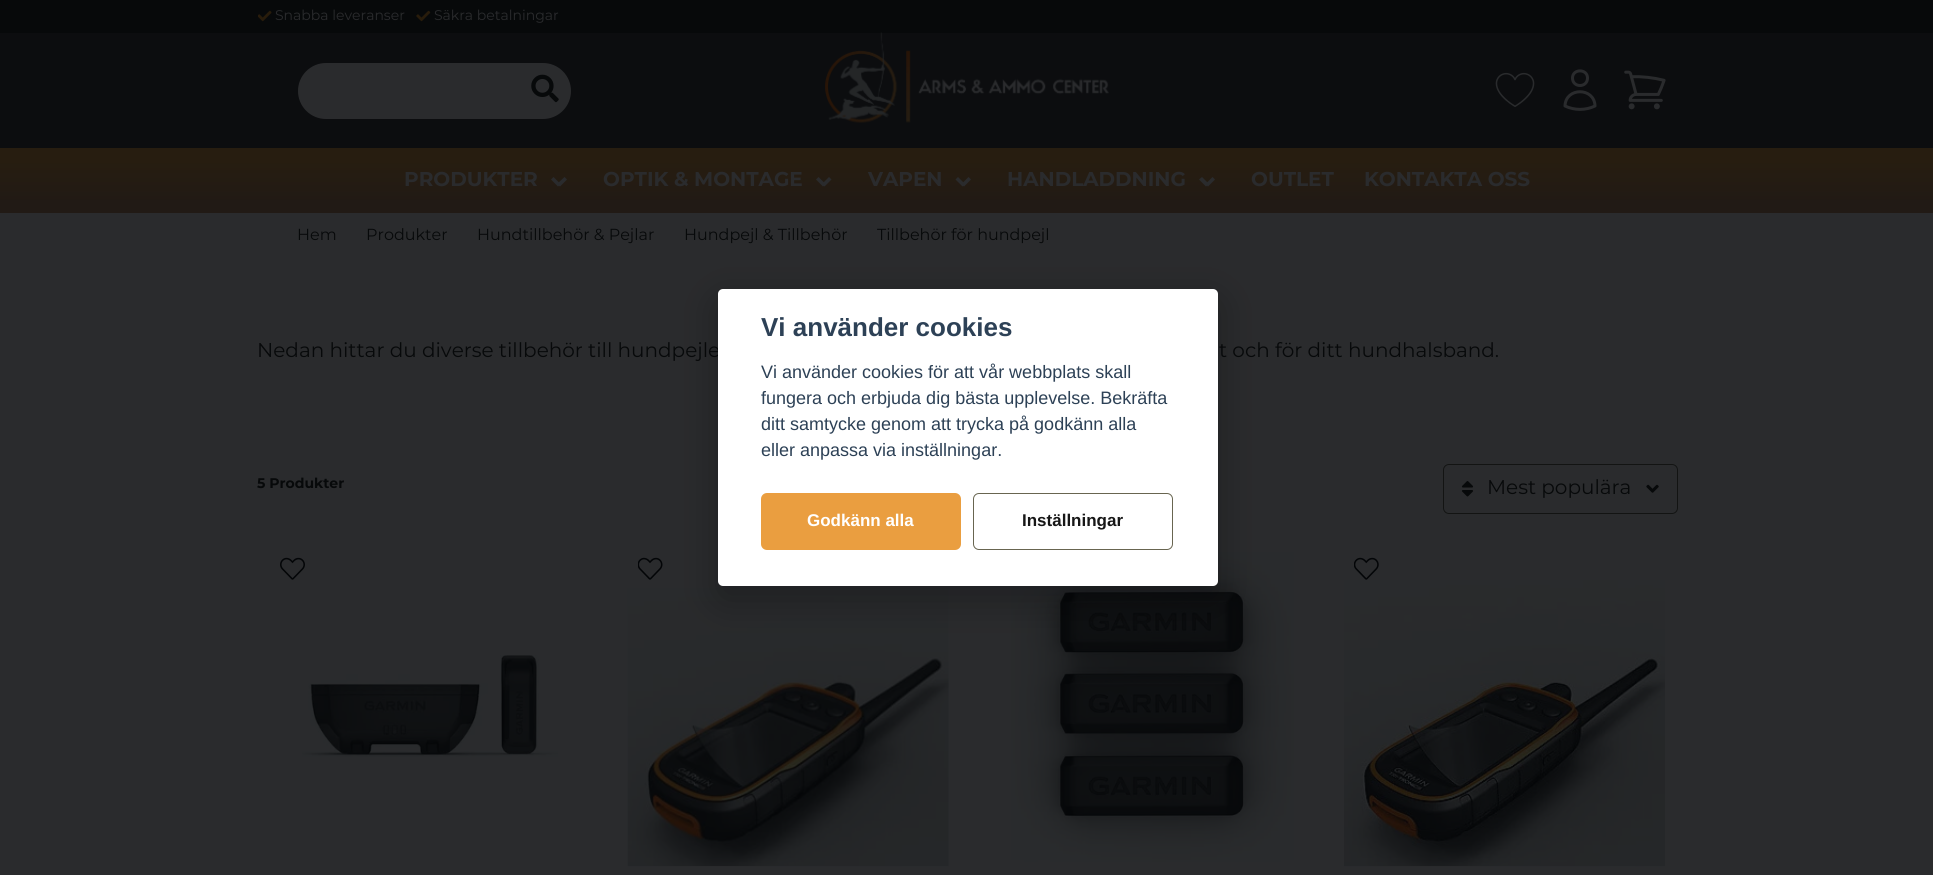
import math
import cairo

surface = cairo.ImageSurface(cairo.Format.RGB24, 1933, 875)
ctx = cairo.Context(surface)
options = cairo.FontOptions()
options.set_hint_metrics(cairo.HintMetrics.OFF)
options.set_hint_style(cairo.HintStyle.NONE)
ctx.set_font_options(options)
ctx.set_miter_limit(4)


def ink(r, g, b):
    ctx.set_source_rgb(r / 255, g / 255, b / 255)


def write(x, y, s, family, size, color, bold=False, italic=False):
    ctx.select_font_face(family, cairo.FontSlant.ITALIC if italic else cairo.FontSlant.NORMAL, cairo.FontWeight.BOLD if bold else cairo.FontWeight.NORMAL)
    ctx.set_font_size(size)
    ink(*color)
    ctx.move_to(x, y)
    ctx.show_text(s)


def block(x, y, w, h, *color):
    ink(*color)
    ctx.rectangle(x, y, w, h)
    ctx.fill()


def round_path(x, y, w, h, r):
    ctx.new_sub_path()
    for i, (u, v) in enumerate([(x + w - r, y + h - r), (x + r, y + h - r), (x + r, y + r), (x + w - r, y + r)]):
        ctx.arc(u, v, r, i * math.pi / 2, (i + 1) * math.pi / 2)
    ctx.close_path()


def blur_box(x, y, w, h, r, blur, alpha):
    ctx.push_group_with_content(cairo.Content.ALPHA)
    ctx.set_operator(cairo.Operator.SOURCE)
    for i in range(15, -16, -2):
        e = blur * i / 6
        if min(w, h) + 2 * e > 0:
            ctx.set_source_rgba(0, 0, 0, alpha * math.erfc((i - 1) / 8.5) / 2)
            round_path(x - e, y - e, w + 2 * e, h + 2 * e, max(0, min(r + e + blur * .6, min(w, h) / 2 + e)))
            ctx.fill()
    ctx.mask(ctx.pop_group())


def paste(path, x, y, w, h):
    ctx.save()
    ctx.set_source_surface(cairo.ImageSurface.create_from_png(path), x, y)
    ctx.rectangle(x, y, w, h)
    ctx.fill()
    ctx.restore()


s1 = dict(family="Montserrat", size=14, color=(42, 43, 45))
s2 = dict(family="Montserrat", size=20, color=(42, 43, 45), bold=True)
s3 = dict(family="Montserrat", size=16, color=(7, 9, 10))
s4 = dict(family="Montserrat", size=20, color=(7, 9, 10))
s5 = dict(family="Montserrat", size=14, color=(7, 9, 10), bold=True)
s6 = dict(family="Liberation Sans", size=26, color=(45, 65, 86), bold=True)
s7 = dict(family="Liberation Sans", size=18, color=(45, 65, 86))
s8 = dict(family="Liberation Sans", size=17, color=(255, 255, 255), bold=True)
s9 = dict(family="Liberation Sans", size=17, color=(23, 23, 23), bold=True)

ink(42, 43, 45)
ctx.paint()
block(0, 33, 1933, 115, 12, 13, 15)
block(0, 0, 1933, 33, 7, 9, 10)
paste("pic1.png", 258, 10, 14, 12)
write(275, 20, "Snabba leveranser", **s1)
paste("pic2.png", 416, 10, 15, 12)
write(434, 20, "Säkra betalningar", **s1)
round_path(298, 63, 273, 56, 28)
ctx.fill()
paste("pic3.png", 531, 74, 28, 29)
paste("pic4.png", 825, 32, 284, 91)
paste("pic5.png", 1495, 72, 40, 35)
ctx.new_path()
ctx.move_to(1587.5, 78)
ctx.curve_to(1587.5, 88, 1572.5, 88, 1572.5, 78)
ctx.curve_to(1572.5, 68.5, 1587.5, 68.5, 1587.5, 78)
ctx.close_path()
ctx.move_to(1565, 106)
ctx.curve_to(1565.5, 87, 1594.5, 87, 1595, 106)
ctx.curve_to(1585.5, 110.5, 1574.5, 110.5, 1565, 106)
ctx.close_path()
ctx.set_line_width(3)
ctx.set_line_cap(cairo.LineCap.ROUND)
ctx.set_line_join(cairo.LineJoin.ROUND)
ctx.stroke()
paste("pic6.png", 1624, 70, 42, 40)
gradient = cairo.LinearGradient(967, 213, 967, 148)
gradient.add_color_stop_rgba(0.15, 0.129, 0.102, 0.082, 1)
gradient.add_color_stop_rgba(0.82, 0.153, 0.114, 0.063, 1)
ctx.set_source(gradient)
ctx.rectangle(0, 148, 1933, 65)
ctx.fill()
write(404, 186, "PRODUKTER", **s2)
ctx.new_path()
ctx.move_to(557, 184)
ctx.line_to(564.5, 177)
ctx.line_to(567, 179.5)
ctx.line_to(560, 186.5)
ctx.close_path()
ctx.fill()
ctx.new_path()
ctx.move_to(551, 179.5)
ctx.line_to(553.5, 177)
ctx.line_to(560.5, 184)
ctx.line_to(558, 186.5)
ctx.close_path()
ctx.fill()
write(603, 186, "OPTIK & MONTAGE", **s2)
ctx.new_path()
ctx.move_to(822, 184)
ctx.line_to(829, 177)
ctx.line_to(831.5, 179.5)
ctx.line_to(824.5, 186.5)
ctx.close_path()
ctx.fill()
ctx.new_path()
ctx.move_to(816, 179.5)
ctx.line_to(818.5, 177)
ctx.line_to(825.5, 184)
ctx.line_to(823, 186.5)
ctx.close_path()
ctx.fill()
write(868, 186, "VAPEN", **s2)
ctx.new_path()
ctx.move_to(961.5, 184)
ctx.line_to(968.5, 177)
ctx.line_to(971, 179.5)
ctx.line_to(964, 186.5)
ctx.close_path()
ctx.fill()
ctx.new_path()
ctx.move_to(955.5, 179.5)
ctx.line_to(958, 177)
ctx.line_to(965, 184)
ctx.line_to(962.5, 186.5)
ctx.close_path()
ctx.fill()
write(1007, 186, "HANDLADDNING", **s2)
ctx.new_path()
ctx.move_to(1205.5, 184)
ctx.line_to(1212.5, 177)
ctx.line_to(1215, 179.5)
ctx.line_to(1208, 186.5)
ctx.close_path()
ctx.fill()
ctx.new_path()
ctx.move_to(1199, 179.5)
ctx.line_to(1202, 177)
ctx.line_to(1209, 184)
ctx.line_to(1206, 186.5)
ctx.close_path()
ctx.fill()
write(1251, 186, "OUTLET", **s2)
write(1364, 186, "KONTAKTA OSS", **s2)
write(297, 240, "Hem", **s3)
write(366, 240, "Produkter", **s3)
write(477, 240, "Hundtillbehör & Pejlar", **s3)
write(684, 240, "Hundpejl & Tillbehör", **s3)
write(877, 240, "Tillbehör för hundpejl", **s3)
write(257, 357, "Nedan hittar du diverse tillbehör till hundpejle", **s4)
write(1219, 357, "t och för ditt hundhalsband.", **s4)
write(257, 488, "5 Produkter", **s5)
round_path(1443.5, 464.5, 234, 49, 5.5)
ink(19, 20, 19)
ctx.set_line_width(1)
ctx.set_line_cap(cairo.LineCap.BUTT)
ctx.set_line_join(cairo.LineJoin.MITER)
ctx.stroke()
paste("pic7.png", 1461, 481, 13, 16)
write(1487, 494, "Mest populära", **s4)
paste("pic8.png", 1646, 484, 13, 9)
paste("pic9.png", 280, 557, 25, 23)
paste("pic10.png", 302, 655, 256, 102)
paste("pic11.png", 638, 557, 25, 23)
paste("pic12.png", 627, 588, 322, 279)
paste("pic13.png", 1011, 552, 283, 310)
paste("pic14.png", 1354, 557, 25, 23)
paste("pic15.png", 1344, 580, 321, 287)
ink(2, 2, 3)
blur_box(718, 301, 500, 298, 5, 19, 0.28)
ink(255, 255, 255)
round_path(718, 289, 500, 297, 5)
ctx.fill()
write(761, 336, "Vi använder cookies", **s6)
write(761, 378, "Vi använder cookies för att vår webbplats skall", **s7)
write(761, 404, "fungera och erbjuda dig bästa upplevelse. Bekräfta", **s7)
write(761, 430, "ditt samtycke genom att trycka på godkänn alla", **s7)
write(761, 456, "eller anpassa via inställningar.", **s7)
ink(234, 158, 64)
round_path(761, 493, 200, 57, 6)
ctx.fill()
write(807, 526, "Godkänn alla", **s8)
round_path(973.5, 493.5, 199, 56, 5.5)
ink(104, 101, 80)
ctx.stroke()
write(1022, 526, "Inställningar", **s9)
surface.write_to_png("screenshot.png")
